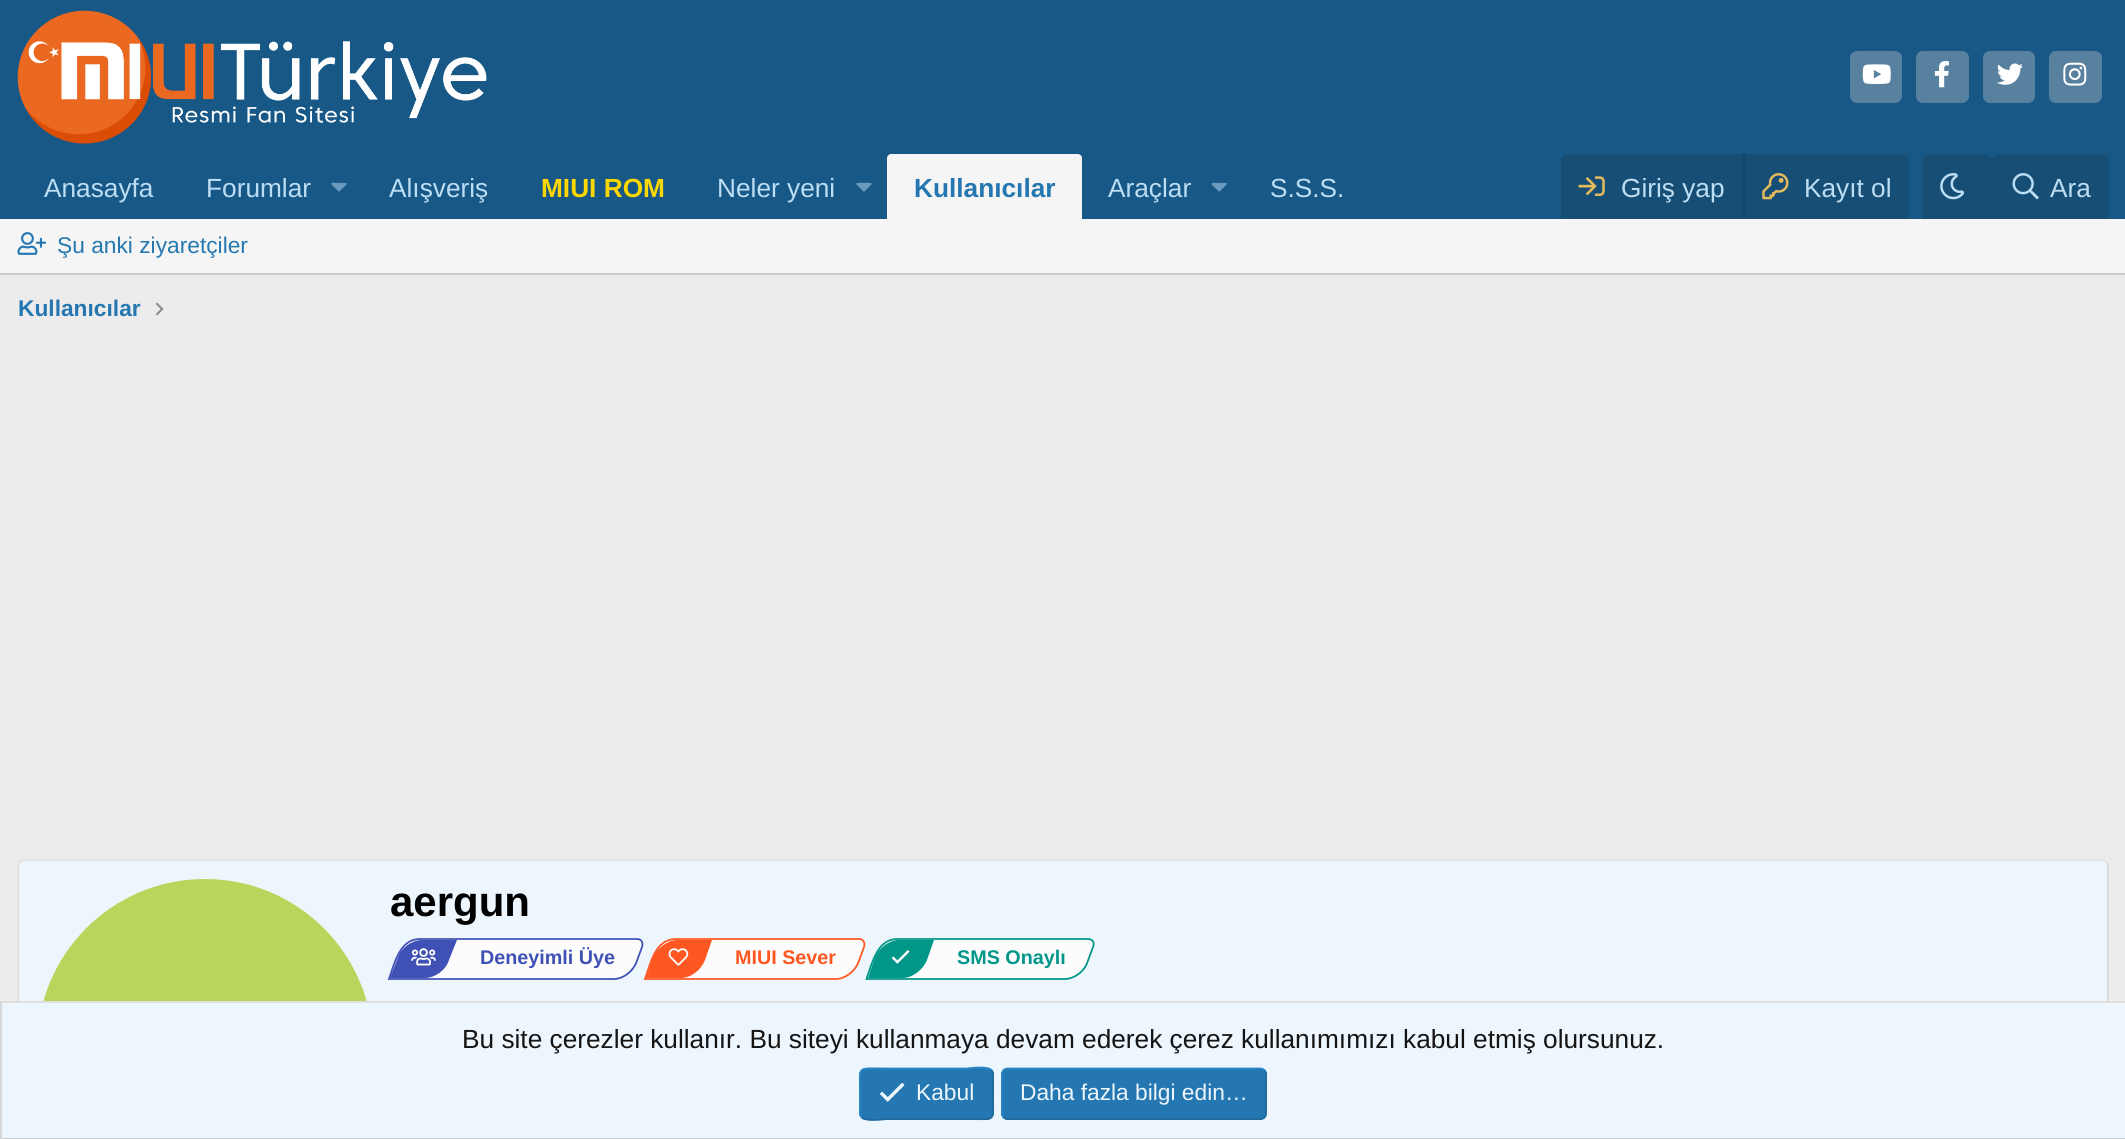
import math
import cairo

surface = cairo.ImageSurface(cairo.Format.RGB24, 2125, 1139)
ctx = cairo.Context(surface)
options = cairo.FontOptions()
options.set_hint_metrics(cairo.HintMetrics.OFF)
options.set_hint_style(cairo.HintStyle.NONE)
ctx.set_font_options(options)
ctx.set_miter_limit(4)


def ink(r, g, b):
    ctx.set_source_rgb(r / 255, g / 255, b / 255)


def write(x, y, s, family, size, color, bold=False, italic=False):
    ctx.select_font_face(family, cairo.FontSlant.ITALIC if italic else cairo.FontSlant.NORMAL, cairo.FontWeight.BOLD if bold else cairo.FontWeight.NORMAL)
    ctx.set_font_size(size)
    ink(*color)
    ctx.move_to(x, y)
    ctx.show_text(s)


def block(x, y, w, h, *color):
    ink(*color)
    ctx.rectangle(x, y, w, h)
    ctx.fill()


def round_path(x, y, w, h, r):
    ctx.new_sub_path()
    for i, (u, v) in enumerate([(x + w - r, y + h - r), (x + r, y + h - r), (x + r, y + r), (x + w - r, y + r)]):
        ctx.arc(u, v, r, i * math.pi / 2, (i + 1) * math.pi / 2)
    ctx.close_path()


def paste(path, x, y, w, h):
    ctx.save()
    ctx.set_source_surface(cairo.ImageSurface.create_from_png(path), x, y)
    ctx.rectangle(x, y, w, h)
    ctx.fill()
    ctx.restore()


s1 = dict(family="Liberation Sans", size=26.25, color=(188, 222, 245))
s2 = dict(family="Liberation Sans", size=26.25, color=(253, 215, 0), bold=True)
s3 = dict(family="Liberation Sans", size=26.25, color=(37, 119, 177), bold=True)
s4 = dict(family="Liberation Sans", size=22.75, color=(37, 119, 177))
s5 = dict(family="Liberation Sans", size=22.75, color=(37, 119, 177), bold=True)
s6 = dict(family="Liberation Sans", size=42, color=(0, 0, 0), bold=True)
s7 = dict(family="Liberation Sans", size=19.75, color=(63, 81, 181), bold=True)
s8 = dict(family="Liberation Sans", size=19.75, color=(255, 87, 34), bold=True)
s9 = dict(family="Liberation Sans", size=19.75, color=(0, 150, 136), bold=True)
s10 = dict(family="Liberation Sans", size=26.25, color=(20, 20, 20))
s11 = dict(family="Liberation Sans", size=22.75, color=(237, 246, 253))

ink(236, 236, 236)
ctx.paint()
block(0, 0, 2125, 219, 24, 88, 134)
paste("pic1.png", 17, 10, 470, 134)
ink(88, 129, 159)
round_path(1850, 51, 52, 52, 7)
ctx.fill()
paste("pic2.png", 1862, 64, 29, 20)
round_path(1916, 51, 53, 52, 7)
ctx.fill()
paste("pic3.png", 1934, 61, 15, 27)
round_path(1983, 51, 52, 52, 7)
ctx.fill()
paste("pic4.png", 1997, 63, 26, 22)
round_path(2049, 51, 53, 52, 7)
ctx.fill()
paste("pic5.png", 2063, 62, 24, 24)
write(44, 197, "Anasayfa", **s1)
write(206, 197, "Forumlar", **s1)
paste("pic6.png", 331, 182, 16, 10)
write(389, 197, "Alışveriş", **s1)
write(541, 197, "MIUI ROM", **s2)
write(717, 197, "Neler yeni", **s1)
paste("pic6.png", 856, 182, 16, 10)
ink(245, 245, 245)
ctx.new_path()
ctx.move_to(891, 154)
ctx.line_to(1078, 154)
ctx.curve_to(1080, 154, 1082, 156, 1082, 158)
ctx.line_to(1082, 219)
ctx.line_to(887, 219)
ctx.line_to(887, 158)
ctx.curve_to(887, 156, 889, 154, 891, 154)
ctx.close_path()
ctx.fill()
write(914, 197, "Kullanıcılar", **s3)
write(1108, 197, "Araçlar", **s1)
paste("pic7.png", 1211, 182, 16, 10)
write(1270, 197, "S.S.S.", **s1)
ink(23, 78, 117)
ctx.new_path()
ctx.move_to(1568, 154)
ctx.line_to(1902, 154)
ctx.curve_to(1906, 154, 1909, 157, 1909, 161)
ctx.line_to(1909, 219)
ctx.line_to(1561, 219)
ctx.line_to(1561, 161)
ctx.curve_to(1561, 157, 1564, 154, 1568, 154)
ctx.close_path()
ctx.fill()
paste("pic8.png", 1578, 176, 27, 20)
write(1621, 197, "Giriş yap", **s1)
block(1743, 154, 2, 65, 23, 69, 102)
paste("pic9.png", 1762, 173, 27, 27)
write(1804, 197, "Kayıt ol", **s1)
ink(23, 78, 117)
ctx.new_path()
ctx.move_to(1929, 154)
ctx.line_to(1985, 154)
ctx.curve_to(1989, 154, 1992, 157, 1992, 161)
ctx.line_to(1992, 219)
ctx.line_to(1922, 219)
ctx.line_to(1922, 161)
ctx.curve_to(1922, 157, 1925, 154, 1929, 154)
ctx.close_path()
ctx.fill()
paste("pic10.png", 1940, 173, 25, 27)
ctx.new_path()
ctx.move_to(1999, 154)
ctx.line_to(2102, 154)
ctx.curve_to(2106, 154, 2109, 157, 2109, 161)
ctx.line_to(2109, 219)
ctx.line_to(1992, 219)
ctx.line_to(1992, 161)
ctx.curve_to(1992, 157, 1995, 154, 1999, 154)
ctx.close_path()
ctx.fill()
paste("pic11.png", 2012, 173, 27, 27)
write(2050, 197, "Ara", **s1)
block(0, 219, 2125, 54, 245, 245, 245)
block(0, 273, 2125, 2, 203, 203, 203)
paste("pic12.png", 17, 232, 29, 23)
write(57, 253, "Şu anki ziyaretçiler", **s4)
write(18, 316, "Kullanıcılar", **s5)
paste("pic13.png", 155, 302, 9, 14)
ink(254, 254, 254)
round_path(18, 859, 2091, 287, 7)
ctx.fill()
ctx.new_path()
ctx.move_to(20, 862)
ctx.curve_to(21.5, 861, 23, 860, 24.5, 860)
ctx.line_to(2102, 860)
ctx.curve_to(2103.5, 860, 2105, 861, 2106, 862)
ink(223, 223, 223)
ctx.set_line_width(1.8)
ctx.stroke()
ctx.new_path()
ctx.move_to(2106, 862)
ctx.curve_to(2107, 863, 2108, 864.5, 2108, 866)
ctx.line_to(2108, 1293)
ctx.curve_to(2108, 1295, 2107, 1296.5, 2106, 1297.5)
ink(216, 216, 216)
ctx.stroke()
ctx.new_path()
ctx.move_to(20, 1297.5)
ctx.curve_to(19, 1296.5, 18.5, 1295, 18.5, 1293)
ctx.line_to(18.5, 866)
ctx.curve_to(18.5, 864.5, 19, 863, 20, 862)
ctx.stroke()
block(19, 861, 2088, 2, 223, 223, 223)
ink(237, 246, 253)
round_path(19, 861, 2088, 264, 5)
ctx.fill()
ink(184, 214, 92)
ctx.arc(205, 1047, 168, 0, 2 * math.pi)
ctx.fill()
write(390, 916, "aergun", **s6)
ink(252, 252, 252)
ctx.new_path()
ctx.move_to(421, 938)
ctx.line_to(637, 938)
ctx.curve_to(642, 938, 645, 942, 643, 947)
ctx.line_to(637, 962)
ctx.curve_to(634, 972, 623, 980, 614, 980)
ctx.line_to(388, 980)
ctx.line_to(397, 956)
ctx.curve_to(400, 946, 411, 938, 421, 938)
ctx.close_path()
ctx.fill()
ctx.new_path()
ctx.move_to(420, 939)
ctx.line_to(637, 939)
ctx.curve_to(641.5, 939, 643.5, 942.5, 642, 947)
ctx.line_to(636.5, 962)
ctx.curve_to(633, 971.5, 623, 979, 614, 979)
ctx.line_to(389, 979)
ctx.curve_to(394.5, 963.5, 399.5, 939, 420, 939)
ctx.close_path()
ink(63, 81, 181)
ctx.stroke()
ctx.new_path()
ctx.move_to(422, 940)
ctx.line_to(457, 940)
ctx.line_to(449, 960)
ctx.curve_to(446, 970, 435, 978, 425, 978)
ctx.line_to(390, 978)
ctx.line_to(398, 957)
ctx.curve_to(401, 948, 412, 940, 422, 940)
ctx.close_path()
ctx.fill()
paste("pic14.png", 411, 948, 25, 18)
write(480, 964, "Deneyimli Üye", **s7)
ink(252, 252, 252)
ctx.new_path()
ctx.move_to(676, 938)
ctx.line_to(859, 938)
ctx.curve_to(864, 938, 866, 942, 865, 947)
ctx.line_to(859, 962)
ctx.curve_to(856, 972, 845, 980, 835, 980)
ctx.line_to(644, 980)
ctx.line_to(652, 956)
ctx.curve_to(656, 946, 667, 938, 676, 938)
ctx.close_path()
ctx.fill()
ctx.new_path()
ctx.move_to(676, 939)
ctx.line_to(859, 939)
ctx.curve_to(863, 939, 865.5, 942.5, 864, 947)
ctx.line_to(858.5, 962)
ctx.curve_to(855, 971.5, 845, 979, 835.5, 979)
ctx.line_to(645, 979)
ctx.curve_to(650.5, 963.5, 655, 939, 676, 939)
ctx.close_path()
ink(255, 87, 34)
ctx.stroke()
ctx.new_path()
ctx.move_to(677, 940)
ctx.line_to(712, 940)
ctx.line_to(705, 960)
ctx.curve_to(701, 970, 691, 978, 681, 978)
ctx.line_to(646, 978)
ctx.line_to(653, 957)
ctx.curve_to(657, 948, 668, 940, 677, 940)
ctx.close_path()
ctx.fill()
paste("pic15.png", 668, 948, 21, 18)
write(735, 964, "MIUI Sever", **s8)
ink(252, 252, 252)
ctx.new_path()
ctx.move_to(898, 938)
ctx.line_to(1089, 938)
ctx.curve_to(1093, 938, 1096, 942, 1094, 947)
ctx.line_to(1089, 962)
ctx.curve_to(1085, 972, 1074, 980, 1065, 980)
ctx.line_to(865, 980)
ctx.line_to(874, 956)
ctx.curve_to(878, 946, 888, 938, 898, 938)
ctx.close_path()
ctx.fill()
ctx.new_path()
ctx.move_to(897.5, 939)
ctx.line_to(1088, 939)
ctx.curve_to(1092.5, 939, 1095, 942.5, 1093, 947)
ctx.line_to(1087.5, 962)
ctx.curve_to(1084.5, 971.5, 1074, 979, 1065, 979)
ctx.line_to(866.5, 979)
ctx.curve_to(872, 963.5, 877, 939, 897.5, 939)
ctx.close_path()
ink(0, 150, 136)
ctx.stroke()
ctx.new_path()
ctx.move_to(899, 940)
ctx.line_to(934, 940)
ctx.line_to(927, 960)
ctx.curve_to(923, 970, 912, 978, 903, 978)
ctx.line_to(868, 978)
ctx.line_to(875, 957)
ctx.curve_to(879, 948, 889, 940, 899, 940)
ctx.close_path()
ctx.fill()
paste("pic16.png", 891, 950, 19, 14)
write(957, 964, "SMS Onaylı", **s9)
block(2, 1003, 2123, 135, 237, 246, 253)
block(0, 1001, 2125, 2, 223, 223, 223)
block(0, 1138, 2125, 1, 203, 203, 203)
block(0, 1001, 2, 138, 216, 216, 216)
write(462, 1048, "Bu site çerezler kullanır. Bu siteyi kullanmaya devam ederek çerez kullanımımızı kabul etmiş olursunuz.", **s10)
ink(37, 119, 177)
round_path(859, 1068, 135, 52, 7)
ctx.fill()
ctx.new_path()
ctx.move_to(991.5, 1070)
ctx.curve_to(994, 1073, 993, 1077.5, 993, 1081)
ctx.line_to(993, 1094)
ctx.curve_to(993, 1123, 997, 1119, 967, 1119)
ctx.line_to(886.5, 1119)
ctx.curve_to(885.5, 1119, 866.5, 1122, 862, 1117.5)
ink(33, 105, 156)
ctx.stroke()
ctx.new_path()
ctx.move_to(862, 1117.5)
ctx.curve_to(859, 1114.5, 860, 1110, 860, 1106.5)
ctx.line_to(860, 1094)
ctx.curve_to(860, 1064.5, 856, 1068.5, 886.5, 1068.5)
ctx.line_to(967, 1068.5)
ctx.curve_to(967.5, 1068.5, 986.5, 1065.5, 991.5, 1070)
ink(41, 133, 198)
ctx.stroke()
paste("pic17.png", 880, 1082, 25, 20)
write(916, 1100, "Kabul", **s11)
ink(37, 119, 177)
round_path(1001, 1068, 266, 52, 7)
ctx.fill()
ctx.new_path()
ctx.move_to(1264.5, 1070)
ctx.curve_to(1265.5, 1071.5, 1266, 1073, 1266, 1074.5)
ctx.line_to(1266, 1113)
ctx.curve_to(1266, 1114.5, 1265.5, 1116, 1264.5, 1117.5)
ctx.curve_to(1263, 1118.5, 1261.5, 1119, 1260, 1119)
ctx.line_to(1008, 1119)
ctx.curve_to(1006.5, 1119, 1005, 1118.5, 1003.5, 1117.5)
ink(33, 105, 156)
ctx.stroke()
ctx.new_path()
ctx.move_to(1003.5, 1117.5)
ctx.curve_to(1002.5, 1116, 1002, 1114.5, 1002, 1113)
ctx.line_to(1002, 1074.5)
ctx.curve_to(1002, 1073, 1002.5, 1071.5, 1003.5, 1070)
ctx.curve_to(1005, 1069, 1006.5, 1068.5, 1008, 1068.5)
ctx.line_to(1260, 1068.5)
ctx.curve_to(1261.5, 1068.5, 1263, 1069, 1264.5, 1070)
ink(41, 133, 198)
ctx.stroke()
write(1020, 1100, "Daha fazla bilgi edin…", **s11)
surface.write_to_png("screenshot.png")
